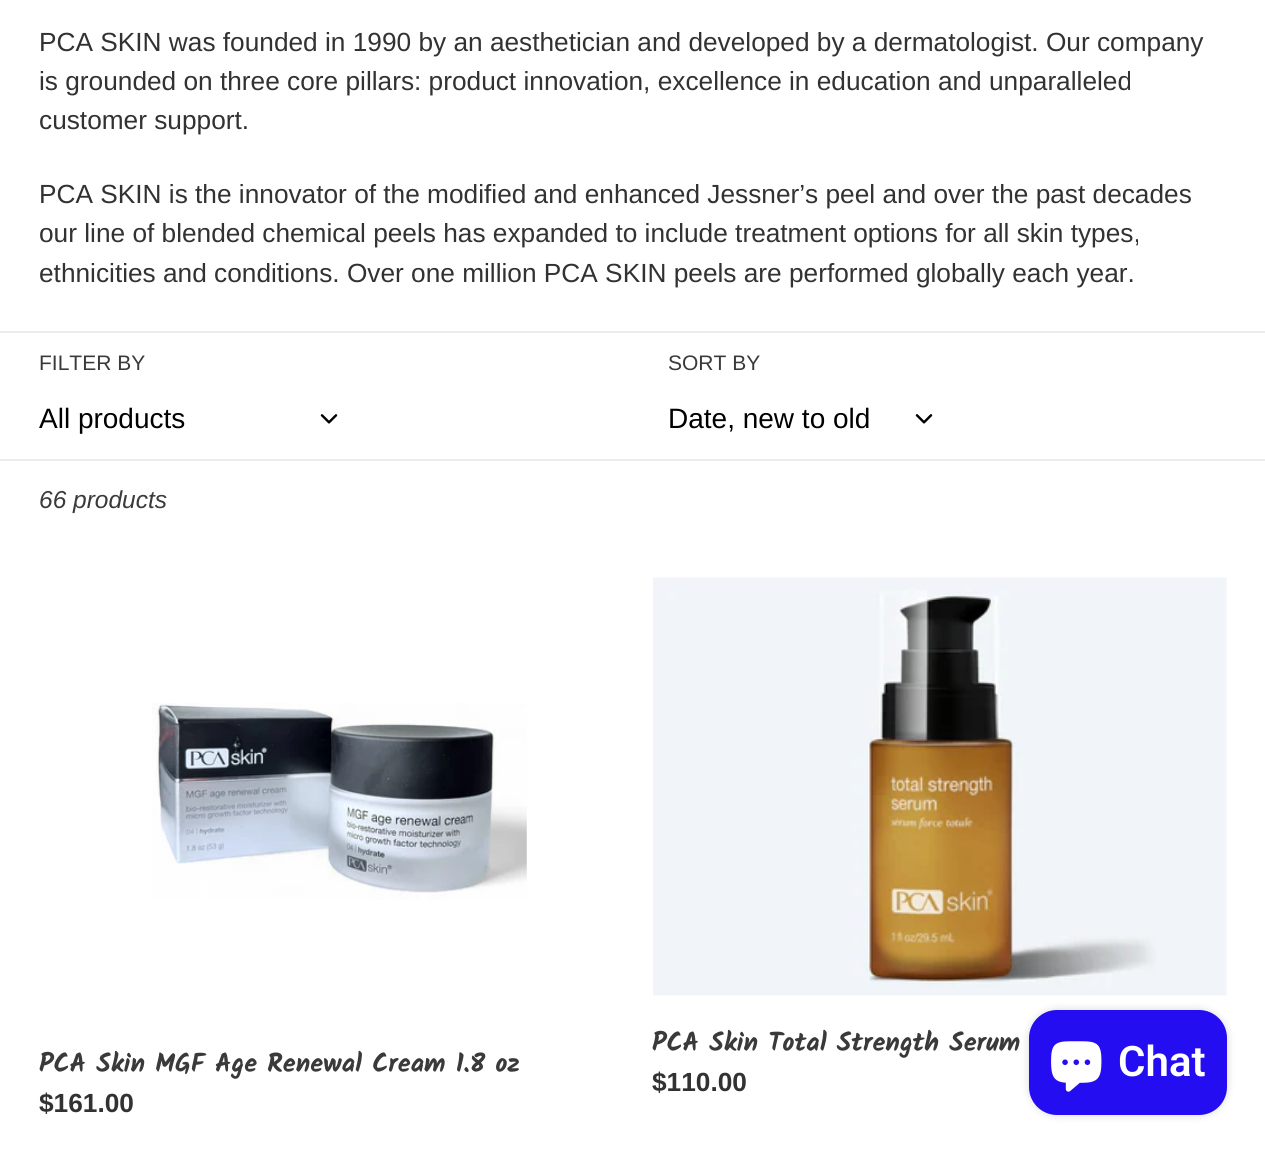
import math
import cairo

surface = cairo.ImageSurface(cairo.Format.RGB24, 1265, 1151)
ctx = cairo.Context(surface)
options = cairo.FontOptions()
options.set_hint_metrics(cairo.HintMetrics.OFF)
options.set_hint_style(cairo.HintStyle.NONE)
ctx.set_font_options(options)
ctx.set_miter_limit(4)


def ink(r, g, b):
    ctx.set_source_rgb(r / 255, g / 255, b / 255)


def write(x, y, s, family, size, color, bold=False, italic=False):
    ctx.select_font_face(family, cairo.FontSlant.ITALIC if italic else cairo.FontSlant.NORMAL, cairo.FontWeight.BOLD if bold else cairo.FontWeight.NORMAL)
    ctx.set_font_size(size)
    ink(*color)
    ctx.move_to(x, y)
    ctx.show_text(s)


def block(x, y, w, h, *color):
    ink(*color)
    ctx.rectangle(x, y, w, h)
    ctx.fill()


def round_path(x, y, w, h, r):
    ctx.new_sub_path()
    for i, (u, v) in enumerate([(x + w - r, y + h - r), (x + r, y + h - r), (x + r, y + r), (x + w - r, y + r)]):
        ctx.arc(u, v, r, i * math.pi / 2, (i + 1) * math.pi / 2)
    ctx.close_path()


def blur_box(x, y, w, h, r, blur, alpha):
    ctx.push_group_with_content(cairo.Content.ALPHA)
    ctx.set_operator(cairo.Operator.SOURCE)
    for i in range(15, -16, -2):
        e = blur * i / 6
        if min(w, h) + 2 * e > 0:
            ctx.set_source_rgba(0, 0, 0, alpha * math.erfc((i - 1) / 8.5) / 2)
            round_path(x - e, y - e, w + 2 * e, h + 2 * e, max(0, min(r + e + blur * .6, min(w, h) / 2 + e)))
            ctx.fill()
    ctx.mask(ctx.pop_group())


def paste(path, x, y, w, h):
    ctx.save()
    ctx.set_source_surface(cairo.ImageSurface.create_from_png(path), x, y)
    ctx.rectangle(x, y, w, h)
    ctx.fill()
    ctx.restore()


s1 = dict(family="Liberation Sans", size=26.25, color=(51, 50, 50))
s2 = dict(family="Liberation Sans", size=21, color=(58, 58, 58))
s3 = dict(family="Liberation Sans", size=28, color=(0, 0, 0))
s4 = dict(family="Liberation Sans", size=24.5, color=(58, 58, 58), italic=True)
s5 = dict(family="Kalam", size=26.25, color=(58, 58, 58), bold=True)
s6 = dict(family="Liberation Sans", size=26.25, color=(51, 50, 50), bold=True)
s7 = dict(family="Roboto SemiBold", size=42, color=(255, 255, 255))

ink(255, 255, 255)
ctx.paint()
write(39, 51, "PCA SKIN was founded in 1990 by an aesthetician and developed by a dermatologist. Our company", **s1)
write(39, 90, "is grounded on three core pillars: product innovation, excellence in education and unparalleled", **s1)
write(39, 129, "customer support.", **s1)
write(39, 203, "PCA SKIN is the innovator of the modified and enhanced Jessner’s peel and over the past decades", **s1)
write(39, 242, "our line of blended chemical peels has expanded to include treatment options for all skin types,", **s1)
write(39, 282, "ethnicities and conditions. Over one million PCA SKIN peels are performed globally each year.", **s1)
block(0, 331, 1265, 2, 235, 235, 235)
write(39, 370, "FILTER BY", **s2)
write(39, 428, "All products", **s3)
paste("pic1.png", 320, 414, 18, 10)
write(668, 370, "SORT BY", **s2)
write(668, 428, "Date, new to old", **s3)
paste("pic1.png", 915, 414, 18, 10)
block(0, 459, 1265, 2, 235, 235, 235)
write(39, 508, "66 products", **s4)
paste("pic2.png", 152, 703, 375, 197)
write(39, 1072, "PCA Skin MGF Age Renewal Cream 1.8 oz", **s5)
write(39, 1112, "$161.00", **s6)
paste("pic3.png", 653, 577, 574, 419)
write(652, 1051, "PCA Skin Total Strength Serum", **s5)
write(652, 1091, "$110.00", **s6)
ink(0, 0, 0)
blur_box(1029, 1010, 198, 105, 28, 4.5, 0.15)
ink(36, 14, 241)
round_path(1029, 1010, 198, 105, 28)
ctx.fill()
paste("pic4.png", 1051, 1041, 51, 51)
write(1118, 1076, "Chat", **s7)
surface.write_to_png("screenshot.png")
